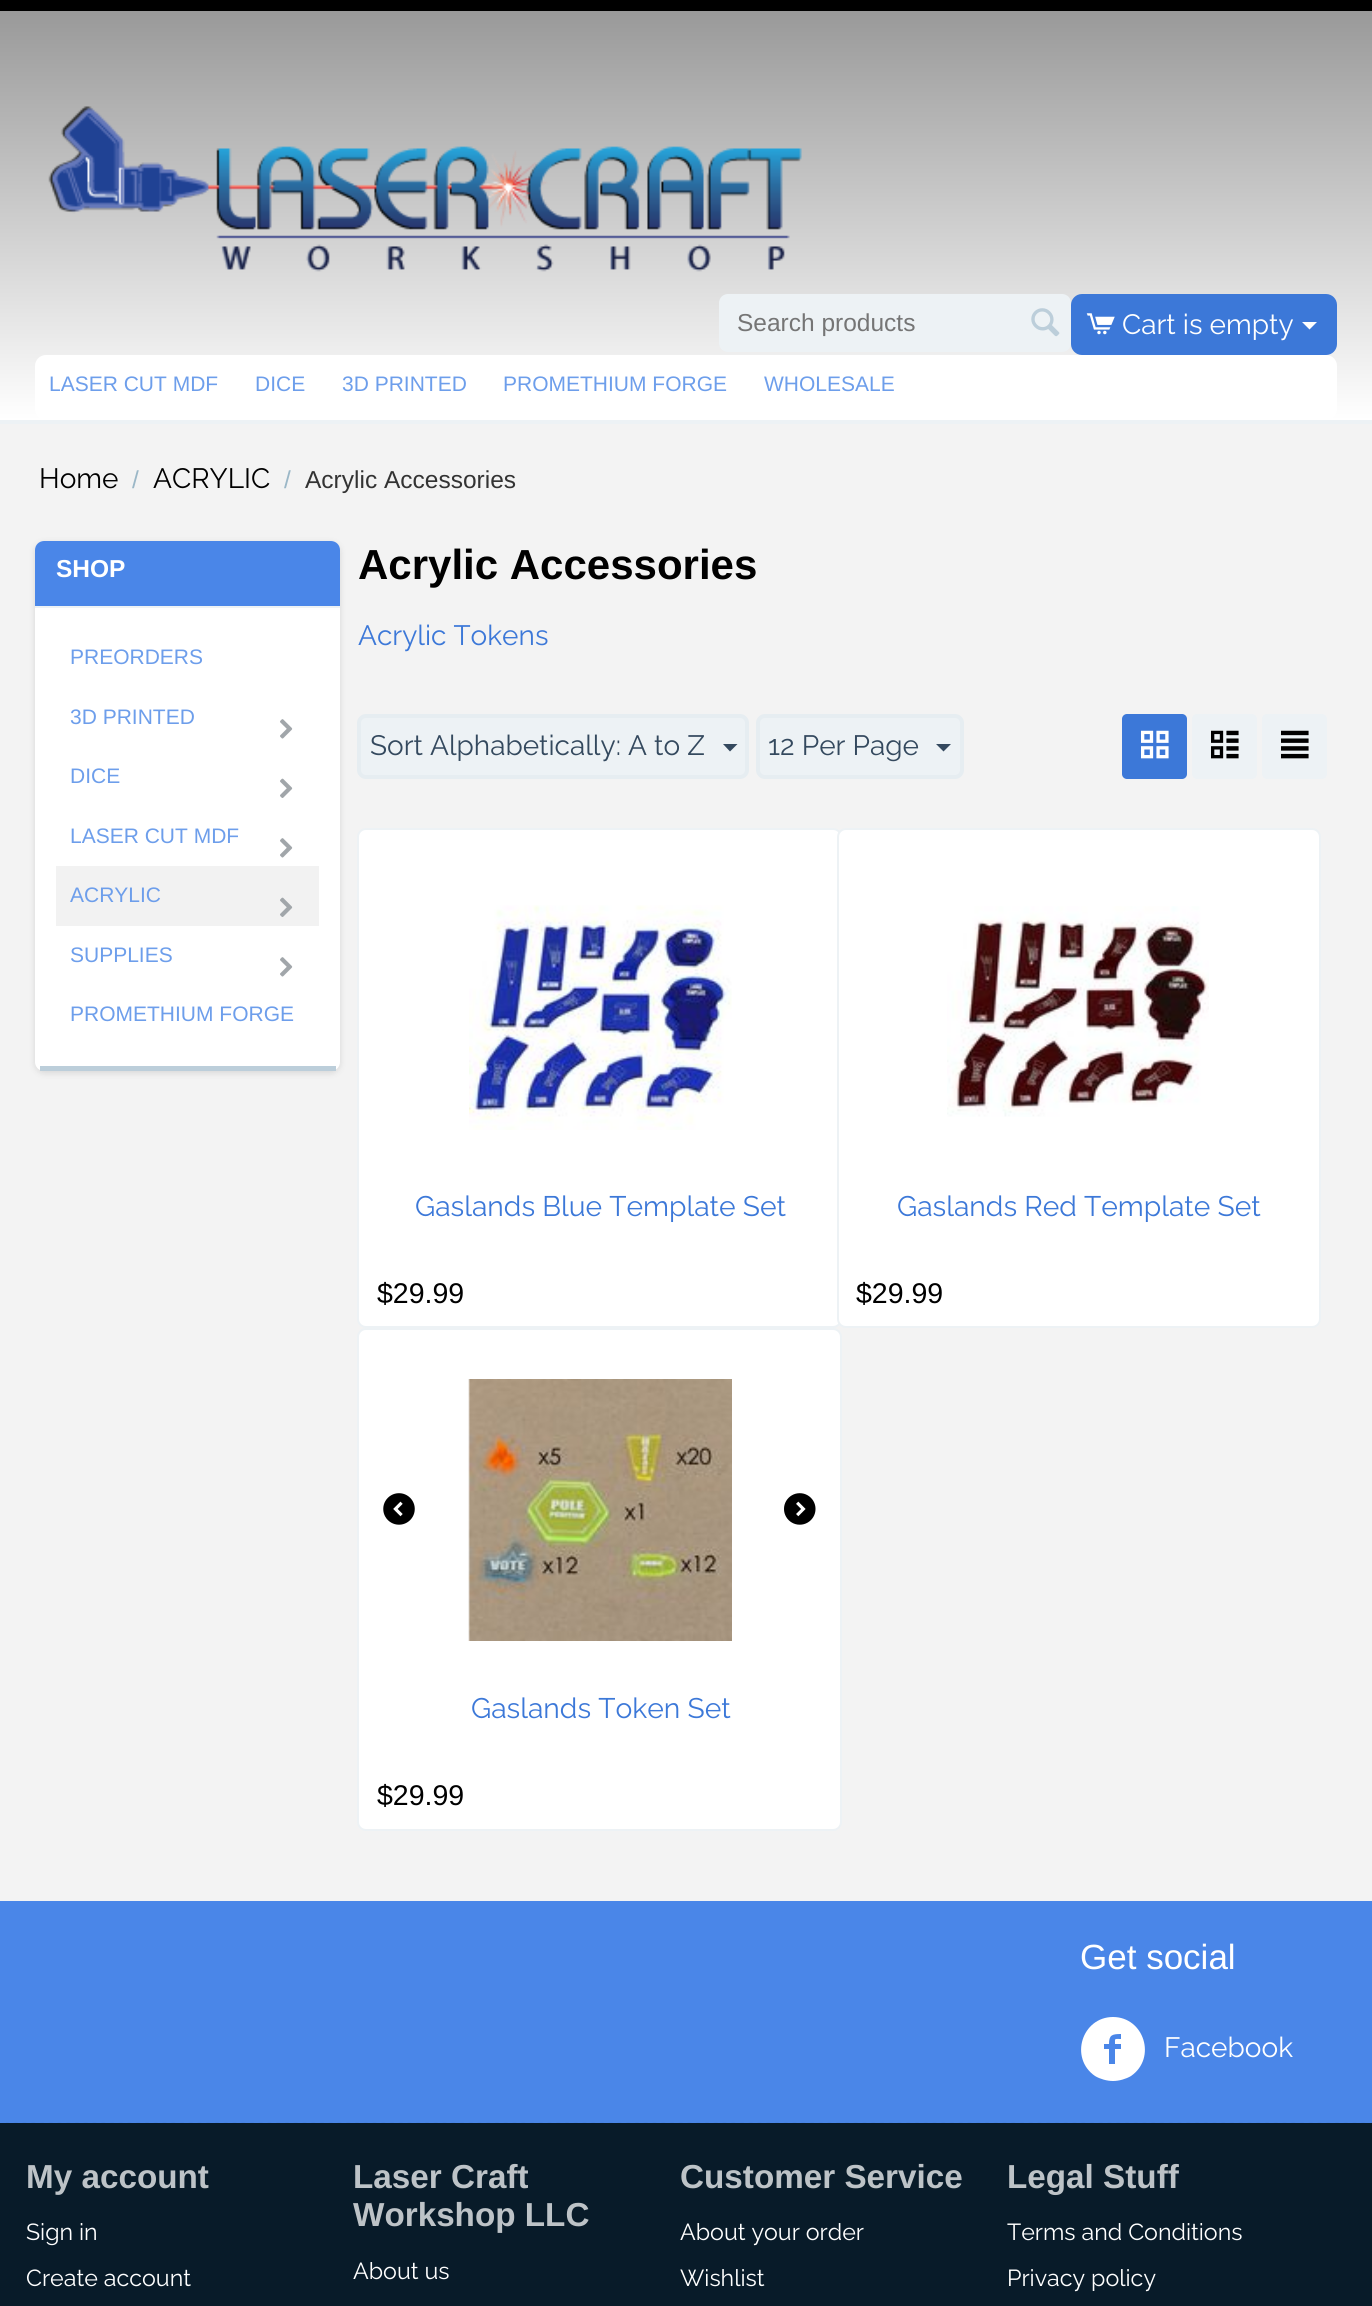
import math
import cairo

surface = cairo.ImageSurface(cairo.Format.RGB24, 1372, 2306)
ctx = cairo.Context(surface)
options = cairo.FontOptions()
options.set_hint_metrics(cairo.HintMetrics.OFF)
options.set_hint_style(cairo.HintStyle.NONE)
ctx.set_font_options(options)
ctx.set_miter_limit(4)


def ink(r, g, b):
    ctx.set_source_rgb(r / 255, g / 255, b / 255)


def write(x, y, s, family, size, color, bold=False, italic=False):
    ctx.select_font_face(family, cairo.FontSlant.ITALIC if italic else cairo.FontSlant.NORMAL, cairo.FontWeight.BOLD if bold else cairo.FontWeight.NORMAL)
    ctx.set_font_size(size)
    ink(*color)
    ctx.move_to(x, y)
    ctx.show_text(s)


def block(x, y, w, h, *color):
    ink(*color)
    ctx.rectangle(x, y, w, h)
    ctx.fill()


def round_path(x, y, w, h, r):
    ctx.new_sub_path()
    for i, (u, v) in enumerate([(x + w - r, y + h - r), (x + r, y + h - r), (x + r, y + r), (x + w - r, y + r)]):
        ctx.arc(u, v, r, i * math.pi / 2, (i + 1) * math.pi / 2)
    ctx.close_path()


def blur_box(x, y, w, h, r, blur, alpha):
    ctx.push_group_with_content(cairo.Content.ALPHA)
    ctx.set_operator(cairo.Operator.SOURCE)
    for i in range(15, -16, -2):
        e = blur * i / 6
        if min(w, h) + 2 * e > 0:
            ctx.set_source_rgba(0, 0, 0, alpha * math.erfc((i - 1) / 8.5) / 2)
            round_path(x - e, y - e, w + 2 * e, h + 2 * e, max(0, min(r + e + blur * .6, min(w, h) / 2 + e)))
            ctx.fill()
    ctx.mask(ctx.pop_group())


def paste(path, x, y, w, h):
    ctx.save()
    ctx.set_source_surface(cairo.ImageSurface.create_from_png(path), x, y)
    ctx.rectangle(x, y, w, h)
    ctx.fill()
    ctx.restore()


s1 = dict(family="Liberation Sans", size=24.5, color=(117, 117, 117))
s2 = dict(family="Raleway Thin", size=28, color=(255, 255, 255))
s3 = dict(family="Liberation Sans", size=21, color=(109, 158, 235))
s4 = dict(family="Raleway Thin", size=28, color=(0, 0, 0))
s5 = dict(family="Liberation Sans", size=24.5, color=(155, 183, 199))
s6 = dict(family="Liberation Sans", size=24.5, color=(51, 51, 51))
s7 = dict(family="Liberation Sans", size=24.5, color=(255, 255, 255), bold=True)
s8 = dict(family="Liberation Sans", size=42, color=(0, 0, 0), bold=True)
s9 = dict(family="Raleway Thin", size=28, color=(60, 120, 216))
s10 = dict(family="Raleway Thin", size=28, color=(52, 73, 94))
s11 = dict(family="Raleway Thin", size=28.25, color=(60, 120, 216))
s12 = dict(family="Liberation Sans", size=28.5, color=(0, 0, 0))
s13 = dict(family="Liberation Sans", size=35, color=(255, 255, 255))
s14 = dict(family="Liberation Sans", size=33.25, color=(189, 195, 199), bold=True)
s15 = dict(family="Raleway Thin", size=23.25, color=(255, 255, 255))

ink(0, 0, 0)
ctx.paint()
gradient = cairo.LinearGradient(686, 10, 686, 420)
gradient.add_color_stop_rgba(0, 0.6, 0.6, 0.6, 1)
gradient.add_color_stop_rgba(1, 1, 1, 1, 1)
ctx.set_source(gradient)
ctx.rectangle(0, 11, 1372, 409)
ctx.fill()
paste("pic1.png", 48, 106, 754, 166)
ink(237, 242, 245)
round_path(721, 296, 348, 54, 7)
ctx.fill_preserve()
ctx.set_line_width(4)
ctx.stroke()
write(737, 331, "Search products", **s1)
paste("pic2.png", 1031, 308, 29, 29)
ink(60, 120, 216)
round_path(1071, 294, 266, 61, 11)
ctx.fill()
paste("pic3.png", 1086, 313, 29, 22)
write(1122, 334, "Cart is empty", **s2)
ctx.new_path()
ctx.move_to(1309.5, 329.5)
ctx.line_to(1302, 322)
ctx.line_to(1317, 322)
ctx.close_path()
ctx.fill()
round_path(35, 355, 1302, 65, 11)
ctx.fill()
write(49, 391, "LASER CUT MDF", **s3)
write(255, 391, "DICE", **s3)
write(342, 391, "3D PRINTED", **s3)
write(503, 391, "PROMETHIUM FORGE", **s3)
write(764, 391, "WHOLESALE", **s3)
block(0, 424, 1372, 1477, 243, 243, 243)
block(0, 420, 1372, 4, 237, 242, 245)
write(39, 488, "Home", **s4)
write(132, 488, "/", **s5)
write(153, 488, "ACRYLIC", **s4)
write(284, 488, "/", **s5)
write(305, 488, "Acrylic Accessories", **s6)
ink(0, 0, 0)
blur_box(35, 543, 305, 530, 9, 3.5, 0.12)
ink(255, 255, 255)
round_path(35, 541, 305, 530, 9)
ctx.fill()
block(40, 1066, 296, 5, 188, 206, 218)
ink(74, 134, 232)
ctx.new_path()
ctx.move_to(44, 541)
ctx.line_to(331, 541)
ctx.curve_to(336, 541, 340, 545, 340, 550)
ctx.line_to(340, 607)
ctx.line_to(35, 607)
ctx.line_to(35, 550)
ctx.curve_to(35, 545, 39, 541, 44, 541)
ctx.close_path()
ctx.fill()
block(35, 606, 305, 2, 237, 242, 245)
write(56, 577, "SHOP", **s7)
write(70, 664, "PREORDERS", **s3)
write(70, 724, "3D PRINTED", **s3)
paste("pic4.png", 280, 719, 13, 20)
write(70, 783, "DICE", **s3)
paste("pic5.png", 280, 778, 13, 20)
write(70, 843, "LASER CUT MDF", **s3)
paste("pic4.png", 280, 838, 13, 20)
block(56, 866, 263, 60, 242, 242, 242)
write(70, 902, "ACRYLIC", **s3)
paste("pic6.png", 280, 897, 13, 20)
write(70, 962, "SUPPLIES", **s3)
paste("pic4.png", 280, 957, 13, 20)
write(70, 1021, "PROMETHIUM FORGE", **s3)
write(358, 579, "Acrylic Accessories", **s8)
write(358, 645, "Acrylic Tokens", **s9)
ink(237, 242, 245)
round_path(359, 716, 388, 61, 7)
ctx.fill_preserve()
ink(230, 237, 241)
ctx.stroke()
write(370, 755, "Sort Alphabetically: A to Z", **s10)
ctx.new_path()
ctx.move_to(730, 751.5)
ctx.line_to(723, 744)
ctx.line_to(737.5, 744)
ctx.close_path()
ctx.fill()
ink(237, 242, 245)
round_path(758, 716, 204, 61, 7)
ctx.fill_preserve()
ink(230, 237, 241)
ctx.stroke()
write(768, 755, "12 Per Page", **s10)
ctx.new_path()
ctx.move_to(943.5, 751.5)
ctx.line_to(936, 744)
ctx.line_to(951, 744)
ctx.close_path()
ctx.fill()
ink(60, 120, 216)
round_path(1122, 714, 65, 65, 5)
ctx.fill()
paste("pic7.png", 1141, 730, 28, 29)
ink(237, 242, 245)
round_path(1192, 714, 65, 65, 5)
ctx.fill()
paste("pic8.png", 1211, 730, 28, 29)
round_path(1262, 714, 65, 65, 5)
ctx.fill()
paste("pic9.png", 1281, 730, 28, 29)
ink(255, 255, 255)
round_path(358, 829, 483, 498, 8)
ctx.fill_preserve()
ink(237, 242, 245)
ctx.set_line_width(2)
ctx.stroke()
paste("pic10.png", 469, 905, 263, 225)
write(415, 1216, "Gaslands Blue Template Set", **s11)
write(377, 1303, "$29.99", **s12)
ink(255, 255, 255)
round_path(838, 829, 482, 498, 8)
ctx.fill_preserve()
ink(237, 242, 245)
ctx.stroke()
paste("pic11.png", 947, 906, 262, 211)
write(897, 1216, "Gaslands Red Template Set", **s11)
write(856, 1303, "$29.99", **s12)
ink(255, 255, 255)
round_path(358, 1329, 483, 501, 8)
ctx.fill_preserve()
ink(237, 242, 245)
ctx.stroke()
paste("pic12.png", 468, 1379, 264, 262)
paste("pic13.png", 383, 1493, 32, 32)
paste("pic14.png", 784, 1493, 32, 32)
write(471, 1718, "Gaslands Token Set", **s11)
write(377, 1805, "$29.99", **s12)
block(0, 2123, 1372, 183, 8, 27, 41)
block(0, 1901, 1372, 222, 74, 134, 232)
write(1080, 1969, "Get social", **s13)
ctx.new_path()
ctx.move_to(1113, 2017)
ctx.curve_to(1082, 2017, 1069, 2058, 1095, 2076)
ctx.curve_to(1100, 2079, 1107, 2081, 1113, 2081)
ctx.curve_to(1119, 2081, 1126, 2079, 1131, 2076)
ctx.curve_to(1157, 2058, 1144, 2017, 1113, 2017)
ctx.close_path()
ctx.move_to(1121, 2039)
ctx.curve_to(1114, 2039, 1115, 2038, 1115, 2044)
ctx.line_to(1121, 2044)
ctx.line_to(1121, 2049)
ctx.line_to(1115, 2049)
ctx.line_to(1115, 2064)
ctx.line_to(1109, 2064)
ctx.line_to(1109, 2049)
ctx.line_to(1104, 2049)
ctx.line_to(1104, 2044)
ctx.line_to(1109, 2044)
ctx.curve_to(1109, 2035, 1112, 2034, 1121, 2034)
ctx.close_path()
ctx.fill()
write(1164, 2057, "Facebook", **s2)
paste("pic15.png", 6, 2122, 1366, 1)
write(26, 2188, "My account", **s14)
write(26, 2240, "Sign in", **s15)
write(26, 2286, "Create account", **s15)
write(353, 2188, "Laser Craft", **s14)
write(353, 2226, "Workshop LLC", **s14)
write(353, 2279, "About us", **s15)
write(680, 2188, "Customer Service", **s14)
write(680, 2240, "About your order", **s15)
write(680, 2286, "Wishlist", **s15)
write(1007, 2188, "Legal Stuff", **s14)
write(1007, 2240, "Terms and Conditions", **s15)
write(1007, 2286, "Privacy policy", **s15)
surface.write_to_png("screenshot.png")
